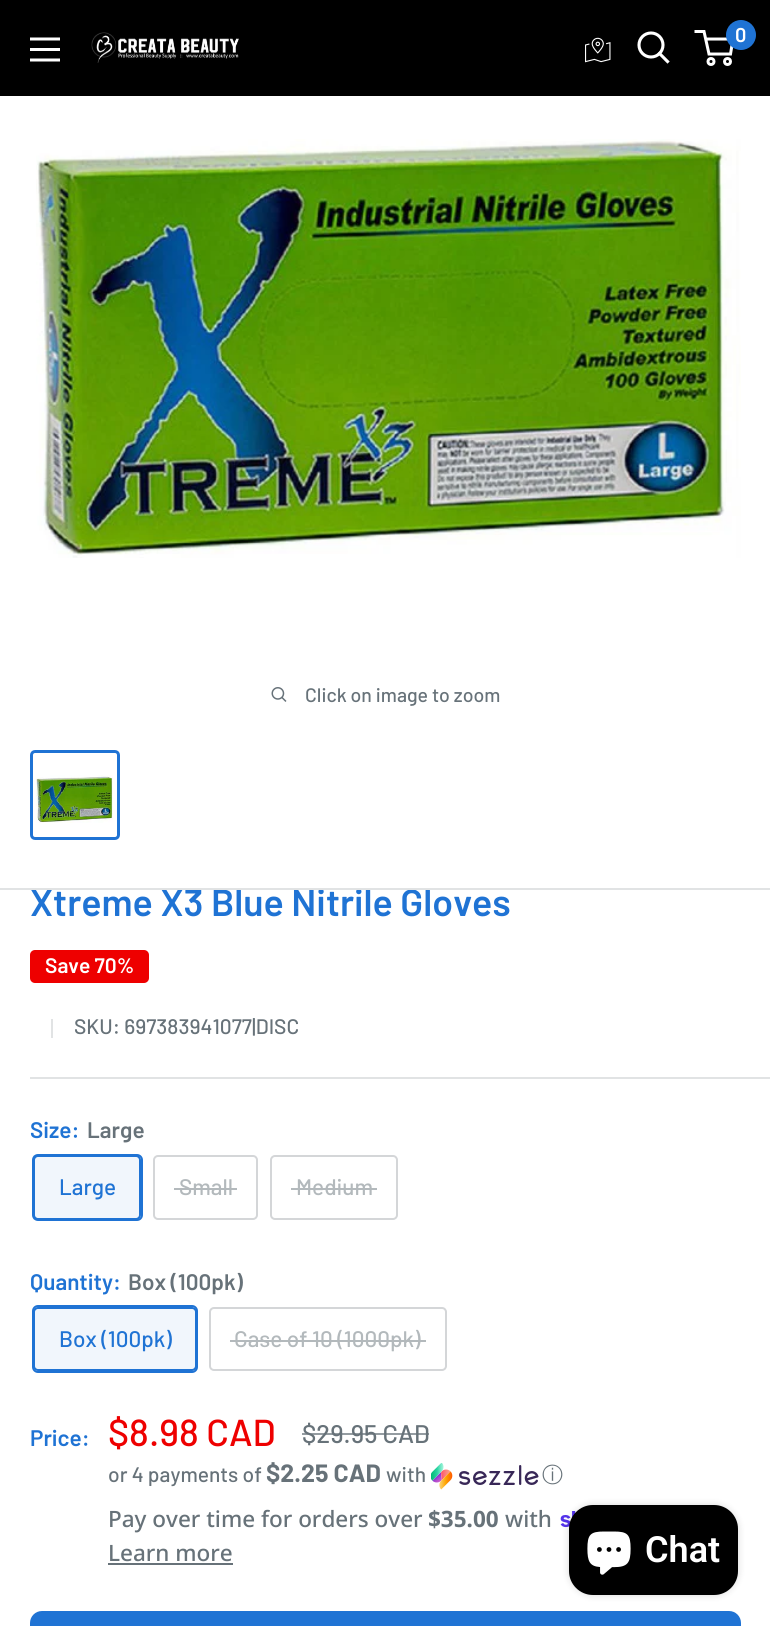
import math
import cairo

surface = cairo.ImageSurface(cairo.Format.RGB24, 770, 1626)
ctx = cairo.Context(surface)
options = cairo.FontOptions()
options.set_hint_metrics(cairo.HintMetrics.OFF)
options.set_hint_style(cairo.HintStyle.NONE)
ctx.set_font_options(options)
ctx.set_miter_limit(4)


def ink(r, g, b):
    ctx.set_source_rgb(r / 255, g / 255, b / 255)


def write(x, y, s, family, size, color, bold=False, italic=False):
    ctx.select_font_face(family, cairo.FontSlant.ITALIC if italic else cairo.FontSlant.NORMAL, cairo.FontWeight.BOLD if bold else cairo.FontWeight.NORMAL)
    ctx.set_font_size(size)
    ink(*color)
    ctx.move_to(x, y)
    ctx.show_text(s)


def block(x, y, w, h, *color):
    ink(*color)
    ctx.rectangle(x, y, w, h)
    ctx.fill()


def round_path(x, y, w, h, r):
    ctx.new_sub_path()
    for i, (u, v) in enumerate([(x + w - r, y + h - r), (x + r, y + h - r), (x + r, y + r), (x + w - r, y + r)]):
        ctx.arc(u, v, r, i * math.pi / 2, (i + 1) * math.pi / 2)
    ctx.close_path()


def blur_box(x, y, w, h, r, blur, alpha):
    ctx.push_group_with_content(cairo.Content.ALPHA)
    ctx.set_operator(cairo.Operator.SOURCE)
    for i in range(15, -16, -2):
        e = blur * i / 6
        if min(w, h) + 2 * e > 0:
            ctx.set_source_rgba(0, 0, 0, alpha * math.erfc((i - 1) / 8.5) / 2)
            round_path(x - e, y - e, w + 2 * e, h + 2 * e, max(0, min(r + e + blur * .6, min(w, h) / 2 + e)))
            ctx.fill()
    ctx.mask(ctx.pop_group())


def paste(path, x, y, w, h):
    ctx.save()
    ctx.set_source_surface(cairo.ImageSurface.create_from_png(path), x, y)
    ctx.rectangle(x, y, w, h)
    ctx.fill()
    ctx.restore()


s1 = dict(family="Barlow SemiBold", size=20, color=(255, 255, 255))
s2 = dict(family="Barlow Medium", size=19.5, color=(103, 114, 121))
s3 = dict(family="Barlow SemiBold", size=37.5, color=(31, 115, 212))
s4 = dict(family="Barlow SemiBold", size=21, color=(255, 255, 255))
s5 = dict(family="Barlow Medium", size=21, color=(103, 114, 121))
s6 = dict(family="Barlow SemiBold", size=22.5, color=(31, 115, 212))
s7 = dict(family="Barlow SemiBold", size=22.5, color=(103, 114, 121))
s8 = dict(family="Barlow Medium", size=22.5, color=(31, 115, 212))
s9 = dict(family="Barlow Medium", size=22.5, color=(179, 185, 188))
s10 = dict(family="Barlow Medium", size=37.5, color=(238, 0, 0))
s11 = dict(family="Barlow Medium", size=25.5, color=(103, 114, 121))
s12 = dict(family="Barlow", size=25, color=(103, 114, 121), bold=True)
s13 = dict(family="WenQuanYi Zen Hei Medium", size=21, color=(103, 114, 121))
s14 = dict(family="Noto Sans Medium", size=22.5, color=(103, 114, 121))
s15 = dict(family="Noto Sans", size=22.5, color=(103, 114, 121), bold=True)
s16 = dict(family="Roboto SemiBold", size=36, color=(255, 255, 255))

ink(255, 255, 255)
ctx.paint()
block(0, 0, 770, 96, 0, 0, 0)
paste("pic1.png", 30, 37, 30, 25)
paste("pic2.png", 91, 32, 148, 31)
paste("pic3.png", 585, 37, 26, 26)
ctx.new_path()
ctx.move_to(667.5, 61.5)
ctx.line_to(659.5, 53.5)
ink(255, 255, 255)
ctx.set_line_width(3.1)
ctx.set_line_cap(cairo.LineCap.SQUARE)
ctx.stroke()
ctx.arc(651, 45, 12, 0, 2 * math.pi)
ctx.set_line_cap(cairo.LineCap.BUTT)
ctx.stroke()
ctx.arc(711, 61.5, 3, 0, 2 * math.pi)
ctx.set_line_width(3)
ctx.stroke()
ctx.arc(727.5, 61.5, 3, 0, 2 * math.pi)
ctx.stroke()
ctx.new_path()
ctx.move_to(705.5, 39)
ctx.line_to(733, 39)
ctx.line_to(730.5, 54)
ctx.line_to(709, 54)
ctx.line_to(704, 31.5)
ctx.line_to(694.5, 31.5)
ctx.stroke()
ink(31, 115, 212)
ctx.arc(741, 35, 15, 0, 2 * math.pi)
ctx.fill()
write(735, 42, "0", **s1)
block(0, 888, 770, 2, 225, 227, 228)
paste("pic4.png", 36, 139, 705, 419)
paste("pic5.png", 271, 687, 16, 15)
write(305, 702, "Click on image to zoom", **s2)
round_path(31.5, 751.5, 87, 87, 3.5)
ink(31, 115, 212)
ctx.stroke()
paste("pic6.png", 36, 775, 77, 48)
ctx.save()
ctx.rectangle(0, 890, 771, 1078)
ctx.clip()
write(30, 916, "Xtreme X3 Blue Nitrile Gloves", **s3)
ctx.restore()
ink(238, 0, 0)
round_path(30, 950, 119, 33, 5)
ctx.fill()
write(45, 973, "Save 70%", **s4)
block(51, 1019, 2, 19, 225, 227, 228)
write(74, 1034, "SKU: 697383941077|DISC", **s5)
block(30, 1077, 740, 2, 225, 227, 228)
write(30, 1138, "Size:", **s6)
write(87, 1138, "Large", **s7)
round_path(33, 1155, 109, 65, 5)
ink(31, 115, 212)
ctx.set_line_width(2)
ctx.stroke()
ctx.set_source_rgba(0.122, 0.451, 0.831, 0.06)
ctx.rectangle(33, 1155, 108, 65)
ctx.fill()
round_path(34, 1156, 106, 63, 4)
ink(31, 115, 212)
ctx.stroke()
write(59, 1195, "Large", **s8)
round_path(154, 1156, 103, 63, 4)
ink(212, 214, 216)
ctx.stroke()
write(179, 1195, "Small", **s9)
block(174, 1188, 63, 2, 179, 185, 188)
round_path(271, 1156, 126, 63, 4)
ink(212, 214, 216)
ctx.stroke()
write(296, 1195, "Medium", **s9)
block(291, 1188, 86, 2, 179, 185, 188)
write(30, 1290, "Quantity:", **s6)
write(128, 1290, "Box (100pk)", **s7)
round_path(33, 1306, 164, 66, 5)
ink(31, 115, 212)
ctx.stroke()
ctx.set_source_rgba(0.122, 0.451, 0.831, 0.06)
ctx.rectangle(34, 1307, 162, 64)
ctx.fill()
round_path(34, 1308, 162, 62, 4)
ink(31, 115, 212)
ctx.stroke()
write(59, 1347, "Box (100pk)", **s8)
round_path(210, 1308, 236, 62, 4)
ink(212, 214, 216)
ctx.stroke()
write(234, 1347, "Case of 10 (1000pk)", **s9)
block(230, 1340, 196, 2, 179, 185, 188)
write(30, 1446, "Price:", **s6)
write(108, 1446, "$8.98 CAD", **s10)
write(302, 1443, "$29.95 CAD", **s11)
ctx.set_source_rgba(0.404, 0.447, 0.475, 0.7)
ctx.rectangle(302, 1433, 127, 2)
ctx.fill()
write(108, 1482, "or 4 payments of", **s5)
write(266, 1482, "$2.25 CAD", **s12)
write(386, 1482, "with", **s5)
paste("pic7.png", 431, 1463, 108, 27)
write(542, 1482, "ⓘ", **s13)
write(108, 1527, "Pay over time for orders over", **s14)
write(428, 1527, "$35.00", **s15)
write(505, 1527, "with", **s14)
paste("pic8.png", 560, 1511, 16, 17)
write(108, 1561, "Learn more", **s14)
block(108, 1563, 125, 2, 103, 114, 121)
ink(31, 115, 212)
round_path(30, 1611, 711, 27, 12)
ctx.fill()
ink(0, 0, 0)
blur_box(569, 1505, 169, 90, 24, 4, 0.15)
ink(0, 0, 0)
round_path(569, 1505, 169, 90, 24)
ctx.fill()
paste("pic9.png", 587, 1531, 44, 44)
write(645, 1562, "Chat", **s16)
surface.write_to_png("screenshot.png")
